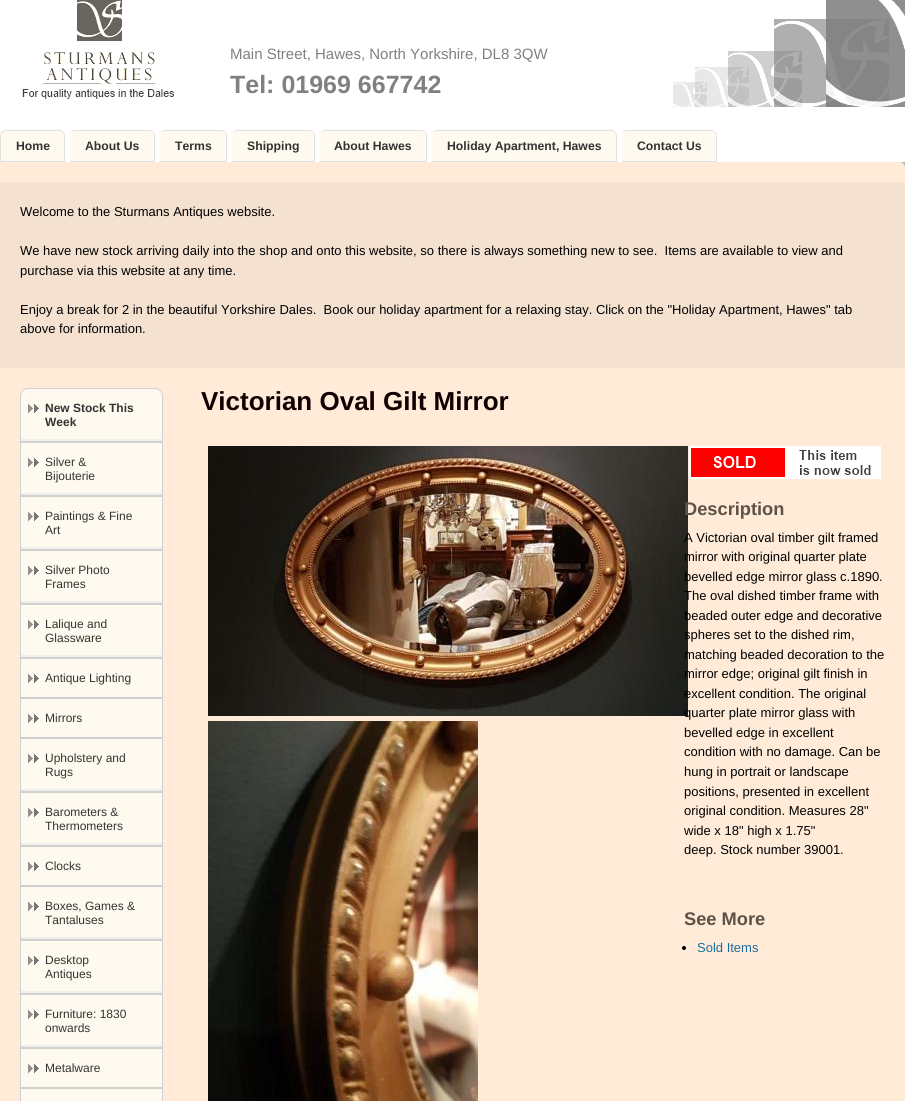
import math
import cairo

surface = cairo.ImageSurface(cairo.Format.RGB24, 905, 1101)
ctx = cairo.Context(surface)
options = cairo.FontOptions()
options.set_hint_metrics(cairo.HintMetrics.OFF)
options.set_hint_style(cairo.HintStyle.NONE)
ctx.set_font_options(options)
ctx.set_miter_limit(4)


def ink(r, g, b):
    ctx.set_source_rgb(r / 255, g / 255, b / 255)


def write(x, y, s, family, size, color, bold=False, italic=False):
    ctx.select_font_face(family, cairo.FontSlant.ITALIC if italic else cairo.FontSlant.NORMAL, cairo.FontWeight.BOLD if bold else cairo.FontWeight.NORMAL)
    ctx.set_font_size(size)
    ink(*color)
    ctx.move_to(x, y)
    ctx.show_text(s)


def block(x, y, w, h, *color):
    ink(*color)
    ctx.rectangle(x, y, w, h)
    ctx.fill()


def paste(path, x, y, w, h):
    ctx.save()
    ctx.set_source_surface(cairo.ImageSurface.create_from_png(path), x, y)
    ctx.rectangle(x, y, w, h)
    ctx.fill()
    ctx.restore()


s1 = dict(family="Liberation Sans", size=15, color=(128, 128, 128))
s2 = dict(family="Liberation Sans", size=25, color=(128, 128, 128), bold=True)
s3 = dict(family="Liberation Sans", size=12.25, color=(51, 51, 51), bold=True)
s4 = dict(family="Liberation Sans", size=13, color=(0, 0, 0))
s5 = dict(family="Liberation Sans", size=12, color=(51, 51, 51), bold=True)
s6 = dict(family="Liberation Sans", size=12, color=(51, 51, 51))
s7 = dict(family="Liberation Sans", size=26, color=(16, 0, 1), bold=True)
s8 = dict(family="Liberation Sans", size=18.25, color=(94, 82, 71), bold=True)
s9 = dict(family="Liberation Sans", size=13, color=(28, 110, 160))

ink(185, 185, 185)
ctx.paint()
block(0, 0, 905, 162, 255, 255, 255)
paste("pic1.png", 673, 0, 232, 107)
paste("pic2.png", 22, 0, 152, 99)
write(230, 59, "Main Street, Hawes, North Yorkshire, DL8 3QW", **s1)
write(230, 93, "Tel: 01969 667742", **s2)
paste("pic3.png", 0, 131, 65, 6)
ctx.new_path()
ctx.move_to(6, 130.5)
ctx.line_to(59, 130.5)
ctx.curve_to(62, 130.5, 64.5, 133, 64.5, 136)
ctx.line_to(64.5, 161.5)
ctx.line_to(0.5, 161.5)
ctx.line_to(0.5, 136)
ctx.curve_to(0.5, 133, 3, 130.5, 6, 130.5)
ctx.close_path()
ink(224, 224, 224)
ctx.set_line_width(1)
ctx.stroke()
ink(255, 250, 239)
ctx.new_path()
ctx.move_to(7, 131)
ctx.line_to(58, 131)
ctx.curve_to(61.5, 131, 64, 133.5, 64, 137)
ctx.line_to(64, 161)
ctx.line_to(1, 161)
ctx.line_to(1, 137)
ctx.curve_to(1, 133.5, 3.5, 131, 7, 131)
ctx.close_path()
ctx.fill()
write(16, 150, "Home", **s3)
ink(238, 238, 238)
ctx.new_path()
ctx.move_to(75, 130)
ctx.line_to(149, 130)
ctx.curve_to(152.5, 130, 155, 132.5, 155, 136)
ctx.line_to(155, 162)
ctx.line_to(69, 162)
ctx.line_to(69, 136)
ctx.curve_to(69, 132.5, 71.5, 130, 75, 130)
ctx.close_path()
ctx.fill()
paste("pic4.png", 69, 131, 86, 31)
ink(224, 224, 224)
ctx.new_path()
ctx.move_to(75, 130)
ctx.curve_to(74, 130, 72, 131, 71, 132)
ctx.line_to(74, 131)
ctx.line_to(150, 131)
ctx.line_to(153, 132)
ctx.curve_to(152, 131, 150, 130, 149, 130)
ctx.close_path()
ctx.fill()
ctx.new_path()
ctx.move_to(155, 162)
ctx.line_to(155, 136)
ctx.curve_to(155, 134.5, 154, 133, 153, 132)
ctx.line_to(152.5, 132.5)
ctx.curve_to(153.5, 133, 154, 134.5, 154, 136)
ctx.line_to(154, 161)
ctx.close_path()
ctx.fill()
ctx.new_path()
ctx.move_to(155, 162)
ctx.line_to(154, 161)
ctx.line_to(70, 161)
ctx.line_to(69, 162)
ctx.close_path()
ctx.fill()
ink(255, 255, 255)
ctx.new_path()
ctx.move_to(69, 162)
ctx.line_to(70, 161)
ctx.line_to(70, 136)
ctx.curve_to(70, 134.5, 70.5, 133, 71.5, 132.5)
ctx.line_to(71, 132)
ctx.curve_to(70, 133, 69, 134.5, 69, 136)
ctx.close_path()
ctx.fill()
ink(255, 250, 239)
ctx.new_path()
ctx.move_to(76, 131)
ctx.line_to(148, 131)
ctx.curve_to(151.5, 131, 154, 133.5, 154, 137)
ctx.line_to(154, 161)
ctx.line_to(70, 161)
ctx.line_to(70, 137)
ctx.curve_to(70, 133.5, 72.5, 131, 76, 131)
ctx.close_path()
ctx.fill()
write(85, 150, "About Us", **s3)
ink(238, 238, 238)
ctx.new_path()
ctx.move_to(165, 130)
ctx.line_to(221, 130)
ctx.curve_to(224.5, 130, 227, 132.5, 227, 136)
ctx.line_to(227, 162)
ctx.line_to(159, 162)
ctx.line_to(159, 136)
ctx.curve_to(159, 132.5, 161.5, 130, 165, 130)
ctx.close_path()
ctx.fill()
paste("pic5.png", 159, 131, 68, 31)
ink(224, 224, 224)
ctx.new_path()
ctx.move_to(165, 130)
ctx.curve_to(164, 130, 162, 131, 161, 132)
ctx.curve_to(162, 132, 164, 131, 165, 131)
ctx.line_to(221, 131)
ctx.curve_to(222, 131, 224, 132, 225, 132)
ctx.curve_to(224, 131, 222, 130, 221, 130)
ctx.close_path()
ctx.fill()
ctx.new_path()
ctx.move_to(227, 162)
ctx.line_to(227, 136)
ctx.curve_to(227, 134.5, 226, 133, 225, 132)
ctx.line_to(224.5, 132.5)
ctx.curve_to(225.5, 133, 226, 134.5, 226, 136)
ctx.line_to(226, 161)
ctx.close_path()
ctx.fill()
ctx.new_path()
ctx.move_to(227, 162)
ctx.line_to(226, 161)
ctx.line_to(160, 161)
ctx.line_to(159, 162)
ctx.close_path()
ctx.fill()
ink(255, 255, 255)
ctx.new_path()
ctx.move_to(159, 162)
ctx.line_to(160, 161)
ctx.line_to(160, 136)
ctx.curve_to(160, 134.5, 160.5, 133, 161.5, 132.5)
ctx.line_to(161, 132)
ctx.curve_to(160, 133, 159, 134.5, 159, 136)
ctx.close_path()
ctx.fill()
ink(255, 250, 239)
ctx.new_path()
ctx.move_to(166, 131)
ctx.line_to(220, 131)
ctx.curve_to(223.5, 131, 226, 133.5, 226, 137)
ctx.line_to(226, 161)
ctx.line_to(160, 161)
ctx.line_to(160, 137)
ctx.curve_to(160, 133.5, 162.5, 131, 166, 131)
ctx.close_path()
ctx.fill()
write(175, 150, "Terms", **s3)
ink(238, 238, 238)
ctx.new_path()
ctx.move_to(237, 130)
ctx.line_to(309, 130)
ctx.curve_to(312.5, 130, 315, 132.5, 315, 136)
ctx.line_to(315, 162)
ctx.line_to(231, 162)
ctx.line_to(231, 136)
ctx.curve_to(231, 132.5, 233.5, 130, 237, 130)
ctx.close_path()
ctx.fill()
paste("pic6.png", 231, 131, 84, 31)
ink(224, 224, 224)
ctx.new_path()
ctx.move_to(237, 130)
ctx.curve_to(236, 130, 234, 131, 233, 132)
ctx.line_to(236, 131)
ctx.line_to(310, 131)
ctx.line_to(313, 132)
ctx.curve_to(312, 131, 310, 130, 309, 130)
ctx.close_path()
ctx.fill()
ctx.new_path()
ctx.move_to(315, 162)
ctx.line_to(315, 136)
ctx.curve_to(315, 134.5, 314, 133, 313, 132)
ctx.line_to(312.5, 132.5)
ctx.curve_to(313.5, 133, 314, 134.5, 314, 136)
ctx.line_to(314, 161)
ctx.close_path()
ctx.fill()
ctx.new_path()
ctx.move_to(315, 162)
ctx.line_to(314, 161)
ctx.line_to(232, 161)
ctx.line_to(231, 162)
ctx.close_path()
ctx.fill()
ink(255, 255, 255)
ctx.new_path()
ctx.move_to(231, 162)
ctx.line_to(232, 161)
ctx.line_to(232, 136)
ctx.curve_to(232, 134.5, 232.5, 133, 233.5, 132.5)
ctx.line_to(233, 132)
ctx.curve_to(232, 133, 231, 134.5, 231, 136)
ctx.close_path()
ctx.fill()
ink(255, 250, 239)
ctx.new_path()
ctx.move_to(238, 131)
ctx.line_to(308, 131)
ctx.curve_to(311.5, 131, 314, 133.5, 314, 137)
ctx.line_to(314, 161)
ctx.line_to(232, 161)
ctx.line_to(232, 137)
ctx.curve_to(232, 133.5, 234.5, 131, 238, 131)
ctx.close_path()
ctx.fill()
write(247, 150, "Shipping", **s3)
ink(238, 238, 238)
ctx.new_path()
ctx.move_to(325, 130)
ctx.line_to(421, 130)
ctx.curve_to(424.5, 130, 427, 132.5, 427, 136)
ctx.line_to(427, 162)
ctx.line_to(319, 162)
ctx.line_to(319, 136)
ctx.curve_to(319, 132.5, 321.5, 130, 325, 130)
ctx.close_path()
ctx.fill()
paste("pic7.png", 319, 131, 108, 31)
ink(224, 224, 224)
ctx.new_path()
ctx.move_to(325, 130)
ctx.curve_to(324, 130, 322, 131, 321, 132)
ctx.line_to(324, 131)
ctx.line_to(422, 131)
ctx.line_to(425, 132)
ctx.curve_to(424, 131, 422, 130, 421, 130)
ctx.close_path()
ctx.fill()
ctx.new_path()
ctx.move_to(427, 162)
ctx.line_to(427, 136)
ctx.curve_to(427, 134.5, 426, 133, 425, 132)
ctx.line_to(424.5, 132.5)
ctx.curve_to(425.5, 133, 426, 134.5, 426, 136)
ctx.line_to(426, 161)
ctx.close_path()
ctx.fill()
ctx.new_path()
ctx.move_to(427, 162)
ctx.line_to(426, 161)
ctx.line_to(320, 161)
ctx.line_to(319, 162)
ctx.close_path()
ctx.fill()
ink(255, 255, 255)
ctx.new_path()
ctx.move_to(319, 162)
ctx.line_to(320, 161)
ctx.line_to(320, 136)
ctx.curve_to(320, 134.5, 320.5, 133, 321.5, 132.5)
ctx.line_to(321, 132)
ctx.curve_to(320, 133, 319, 134.5, 319, 136)
ctx.close_path()
ctx.fill()
ink(255, 250, 239)
ctx.new_path()
ctx.move_to(326, 131)
ctx.line_to(420, 131)
ctx.curve_to(423.5, 131, 426, 133.5, 426, 137)
ctx.line_to(426, 161)
ctx.line_to(320, 161)
ctx.line_to(320, 137)
ctx.curve_to(320, 133.5, 322.5, 131, 326, 131)
ctx.close_path()
ctx.fill()
write(334, 150, "About Hawes", **s3)
ink(238, 238, 238)
ctx.new_path()
ctx.move_to(437, 130)
ctx.line_to(611, 130)
ctx.curve_to(614.5, 130, 617, 132.5, 617, 136)
ctx.line_to(617, 162)
ctx.line_to(431, 162)
ctx.line_to(431, 136)
ctx.curve_to(431, 132.5, 433.5, 130, 437, 130)
ctx.close_path()
ctx.fill()
paste("pic8.png", 431, 131, 186, 31)
ink(224, 224, 224)
ctx.new_path()
ctx.move_to(437, 130)
ctx.curve_to(436, 130, 434, 131, 433, 132)
ctx.curve_to(434, 132, 436, 131, 437, 131)
ctx.line_to(611, 131)
ctx.curve_to(612, 131, 614, 132, 615, 132)
ctx.curve_to(614, 131, 612, 130, 611, 130)
ctx.close_path()
ctx.fill()
ctx.new_path()
ctx.move_to(617, 162)
ctx.line_to(617, 136)
ctx.curve_to(617, 134.5, 616, 133, 615, 132)
ctx.line_to(614.5, 132.5)
ctx.curve_to(615.5, 133, 616, 134.5, 616, 136)
ctx.line_to(616, 161)
ctx.close_path()
ctx.fill()
ctx.new_path()
ctx.move_to(617, 162)
ctx.line_to(616, 161)
ctx.line_to(432, 161)
ctx.line_to(431, 162)
ctx.close_path()
ctx.fill()
ink(255, 255, 255)
ctx.new_path()
ctx.move_to(431, 162)
ctx.line_to(432, 161)
ctx.line_to(432, 136)
ctx.curve_to(432, 134.5, 432.5, 133, 433.5, 132.5)
ctx.line_to(433, 132)
ctx.curve_to(432, 133, 431, 134.5, 431, 136)
ctx.close_path()
ctx.fill()
ink(255, 250, 239)
ctx.new_path()
ctx.move_to(438, 131)
ctx.line_to(610, 131)
ctx.curve_to(613.5, 131, 616, 133.5, 616, 137)
ctx.line_to(616, 161)
ctx.line_to(432, 161)
ctx.line_to(432, 137)
ctx.curve_to(432, 133.5, 434.5, 131, 438, 131)
ctx.close_path()
ctx.fill()
write(447, 150, "Holiday Apartment, Hawes", **s3)
ink(238, 238, 238)
ctx.new_path()
ctx.move_to(627, 130)
ctx.line_to(711, 130)
ctx.curve_to(714.5, 130, 717, 132.5, 717, 136)
ctx.line_to(717, 162)
ctx.line_to(621, 162)
ctx.line_to(621, 136)
ctx.curve_to(621, 132.5, 623.5, 130, 627, 130)
ctx.close_path()
ctx.fill()
paste("pic9.png", 621, 131, 96, 31)
ink(224, 224, 224)
ctx.new_path()
ctx.move_to(627, 130)
ctx.curve_to(626, 130, 624, 131, 623, 132)
ctx.line_to(626, 131)
ctx.line_to(712, 131)
ctx.line_to(715, 132)
ctx.curve_to(714, 131, 712, 130, 711, 130)
ctx.close_path()
ctx.fill()
ctx.new_path()
ctx.move_to(717, 162)
ctx.line_to(717, 136)
ctx.curve_to(717, 134.5, 716, 133, 715, 132)
ctx.line_to(714.5, 132.5)
ctx.curve_to(715.5, 133, 716, 134.5, 716, 136)
ctx.line_to(716, 161)
ctx.close_path()
ctx.fill()
ctx.new_path()
ctx.move_to(717, 162)
ctx.line_to(716, 161)
ctx.line_to(622, 161)
ctx.line_to(621, 162)
ctx.close_path()
ctx.fill()
ink(255, 255, 255)
ctx.new_path()
ctx.move_to(621, 162)
ctx.line_to(622, 161)
ctx.line_to(622, 136)
ctx.curve_to(622, 134.5, 622.5, 133, 623.5, 132.5)
ctx.line_to(623, 132)
ctx.curve_to(622, 133, 621, 134.5, 621, 136)
ctx.close_path()
ctx.fill()
ink(255, 250, 239)
ctx.new_path()
ctx.move_to(628, 131)
ctx.line_to(710, 131)
ctx.curve_to(713.5, 131, 716, 133.5, 716, 137)
ctx.line_to(716, 161)
ctx.line_to(622, 161)
ctx.line_to(622, 137)
ctx.curve_to(622, 133.5, 624.5, 131, 628, 131)
ctx.close_path()
ctx.fill()
write(637, 150, "Contact Us", **s3)
ink(255, 235, 216)
ctx.new_path()
ctx.move_to(0, 162)
ctx.line_to(899, 162)
ctx.curve_to(902.5, 162, 905, 164.5, 905, 168)
ctx.line_to(905, 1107)
ctx.line_to(0, 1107)
ctx.close_path()
ctx.fill()
block(0, 182, 905, 186, 244, 225, 208)
write(20, 216, "Welcome to the Sturmans Antiques website.", **s4)
write(20, 255, "We have new stock arriving daily into the shop and onto this website, so there is always something new to see.  Items are available to view and", **s4)
write(20, 275, "purchase via this website at any time.", **s4)
write(20, 314, "Enjoy a break for 2 in the beautiful Yorkshire Dales.  Book our holiday apartment for a relaxing stay. Click on the \"Holiday Apartment, Hawes\" tab", **s4)
write(20, 333, "above for information.", **s4)
ink(238, 238, 238)
ctx.new_path()
ctx.move_to(28, 388)
ctx.line_to(155, 388)
ctx.curve_to(159.5, 388, 163, 391.5, 163, 396)
ctx.line_to(163, 442)
ctx.line_to(20, 442)
ctx.line_to(20, 396)
ctx.curve_to(20, 391.5, 23.5, 388, 28, 388)
ctx.close_path()
ctx.fill()
paste("pic10.png", 20, 389, 143, 50)
ctx.new_path()
ctx.move_to(28, 388.5)
ctx.line_to(155, 388.5)
ctx.curve_to(159, 388.5, 162.5, 392, 162.5, 396)
ctx.line_to(162.5, 441.5)
ctx.line_to(20.5, 441.5)
ctx.line_to(20.5, 396)
ctx.curve_to(20.5, 392, 24, 388.5, 28, 388.5)
ctx.close_path()
ink(208, 208, 208)
ctx.stroke()
paste("pic11.png", 28, 404, 11, 9)
write(45, 412, "New Stock This", **s5)
write(45, 426, "Week", **s5)
block(21, 493, 141, 2, 238, 238, 238)
block(21, 443, 141, 50, 255, 250, 239)
ctx.rectangle(20.5, 442.5, 142, 53)
ink(208, 208, 208)
ctx.stroke()
paste("pic11.png", 28, 458, 11, 9)
write(45, 466, "Silver &", **s6)
write(45, 480, "Bijouterie", **s6)
block(21, 547, 141, 2, 238, 238, 238)
block(21, 497, 141, 50, 255, 250, 239)
ctx.rectangle(20.5, 496.5, 142, 53)
ink(208, 208, 208)
ctx.stroke()
paste("pic11.png", 28, 512, 11, 9)
write(45, 520, "Paintings & Fine", **s6)
write(45, 534, "Art", **s6)
block(21, 601, 141, 2, 238, 238, 238)
block(21, 551, 141, 50, 255, 250, 239)
ctx.rectangle(20.5, 550.5, 142, 53)
ink(208, 208, 208)
ctx.stroke()
paste("pic11.png", 28, 566, 11, 9)
write(45, 574, "Silver Photo", **s6)
write(45, 588, "Frames", **s6)
block(21, 655, 141, 2, 238, 238, 238)
block(21, 605, 141, 50, 255, 250, 239)
ctx.rectangle(20.5, 604.5, 142, 53)
ink(208, 208, 208)
ctx.stroke()
paste("pic11.png", 28, 620, 11, 9)
write(45, 628, "Lalique and", **s6)
write(45, 642, "Glassware", **s6)
ink(255, 250, 239)
ctx.rectangle(20.5, 658.5, 142, 39)
ctx.fill_preserve()
ink(208, 208, 208)
ctx.stroke()
paste("pic11.png", 28, 674, 11, 9)
write(45, 682, "Antique Lighting", **s6)
ink(255, 250, 239)
ctx.rectangle(20.5, 698.5, 142, 39)
ctx.fill_preserve()
ink(208, 208, 208)
ctx.stroke()
paste("pic11.png", 28, 714, 11, 9)
write(45, 722, "Mirrors", **s6)
block(21, 789, 141, 2, 238, 238, 238)
block(21, 739, 141, 50, 255, 250, 239)
ctx.rectangle(20.5, 738.5, 142, 53)
ink(208, 208, 208)
ctx.stroke()
paste("pic11.png", 28, 754, 11, 9)
write(45, 762, "Upholstery and", **s6)
write(45, 776, "Rugs", **s6)
block(21, 843, 141, 2, 238, 238, 238)
block(21, 793, 141, 50, 255, 250, 239)
ctx.rectangle(20.5, 792.5, 142, 53)
ink(208, 208, 208)
ctx.stroke()
paste("pic11.png", 28, 808, 11, 9)
write(45, 816, "Barometers &", **s6)
write(45, 830, "Thermometers", **s6)
ink(255, 250, 239)
ctx.rectangle(20.5, 846.5, 142, 39)
ctx.fill_preserve()
ink(208, 208, 208)
ctx.stroke()
paste("pic11.png", 28, 862, 11, 9)
write(45, 870, "Clocks", **s6)
block(21, 937, 141, 2, 238, 238, 238)
block(21, 887, 141, 50, 255, 250, 239)
ctx.rectangle(20.5, 886.5, 142, 53)
ink(208, 208, 208)
ctx.stroke()
paste("pic11.png", 28, 902, 11, 9)
write(45, 910, "Boxes, Games &", **s6)
write(45, 924, "Tantaluses", **s6)
block(21, 991, 141, 2, 238, 238, 238)
block(21, 941, 141, 50, 255, 250, 239)
ctx.rectangle(20.5, 940.5, 142, 53)
ink(208, 208, 208)
ctx.stroke()
paste("pic11.png", 28, 956, 11, 9)
write(45, 964, "Desktop", **s6)
write(45, 978, "Antiques", **s6)
block(21, 1045, 141, 2, 238, 238, 238)
block(21, 995, 141, 50, 255, 250, 239)
ctx.rectangle(20.5, 994.5, 142, 53)
ink(208, 208, 208)
ctx.stroke()
paste("pic11.png", 28, 1010, 11, 9)
write(45, 1018, "Furniture: 1830", **s6)
write(45, 1032, "onwards", **s6)
ink(255, 250, 239)
ctx.rectangle(20.5, 1048.5, 142, 39)
ctx.fill_preserve()
ink(208, 208, 208)
ctx.stroke()
paste("pic11.png", 28, 1064, 11, 9)
write(45, 1072, "Metalware", **s6)
ink(255, 250, 239)
ctx.rectangle(20.5, 1088.5, 142, 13)
ctx.fill_preserve()
ink(208, 208, 208)
ctx.stroke()
write(201, 410, "Victorian Oval Gilt Mirror", **s7)
paste("pic12.png", 208, 446, 480, 270)
paste("pic13.png", 208, 721, 270, 380)
paste("pic14.png", 689, 446, 192, 33)
write(684, 515, "Description", **s8)
write(684, 542, "A Victorian oval timber gilt framed", **s4)
write(684, 561, "mirror with original quarter plate", **s4)
write(684, 581, "bevelled edge mirror glass c.1890.", **s4)
write(684, 600, "The oval dished timber frame with", **s4)
write(684, 620, "beaded outer edge and decorative", **s4)
write(684, 639, "spheres set to the dished rim,", **s4)
write(684, 659, "matching beaded decoration to the", **s4)
write(684, 678, "mirror edge; original gilt finish in", **s4)
write(684, 698, "excellent condition. The original", **s4)
write(684, 717, "quarter plate mirror glass with", **s4)
write(684, 737, "bevelled edge in excellent", **s4)
write(684, 756, "condition with no damage. Can be", **s4)
write(684, 776, "hung in portrait or landscape", **s4)
write(684, 796, "positions, presented in excellent", **s4)
write(684, 815, "original condition. Measures 28\"", **s4)
write(684, 835, "wide x 18\" high x 1.75\"", **s4)
write(684, 854, "deep. Stock number 39001.", **s4)
write(684, 925, "See More", **s8)
ink(0, 0, 0)
ctx.new_path()
ctx.arc(684, 948, 2, 0, 2 * math.pi)
ctx.fill()
write(697, 952, "Sold Items", **s9)
surface.write_to_png("screenshot.png")
